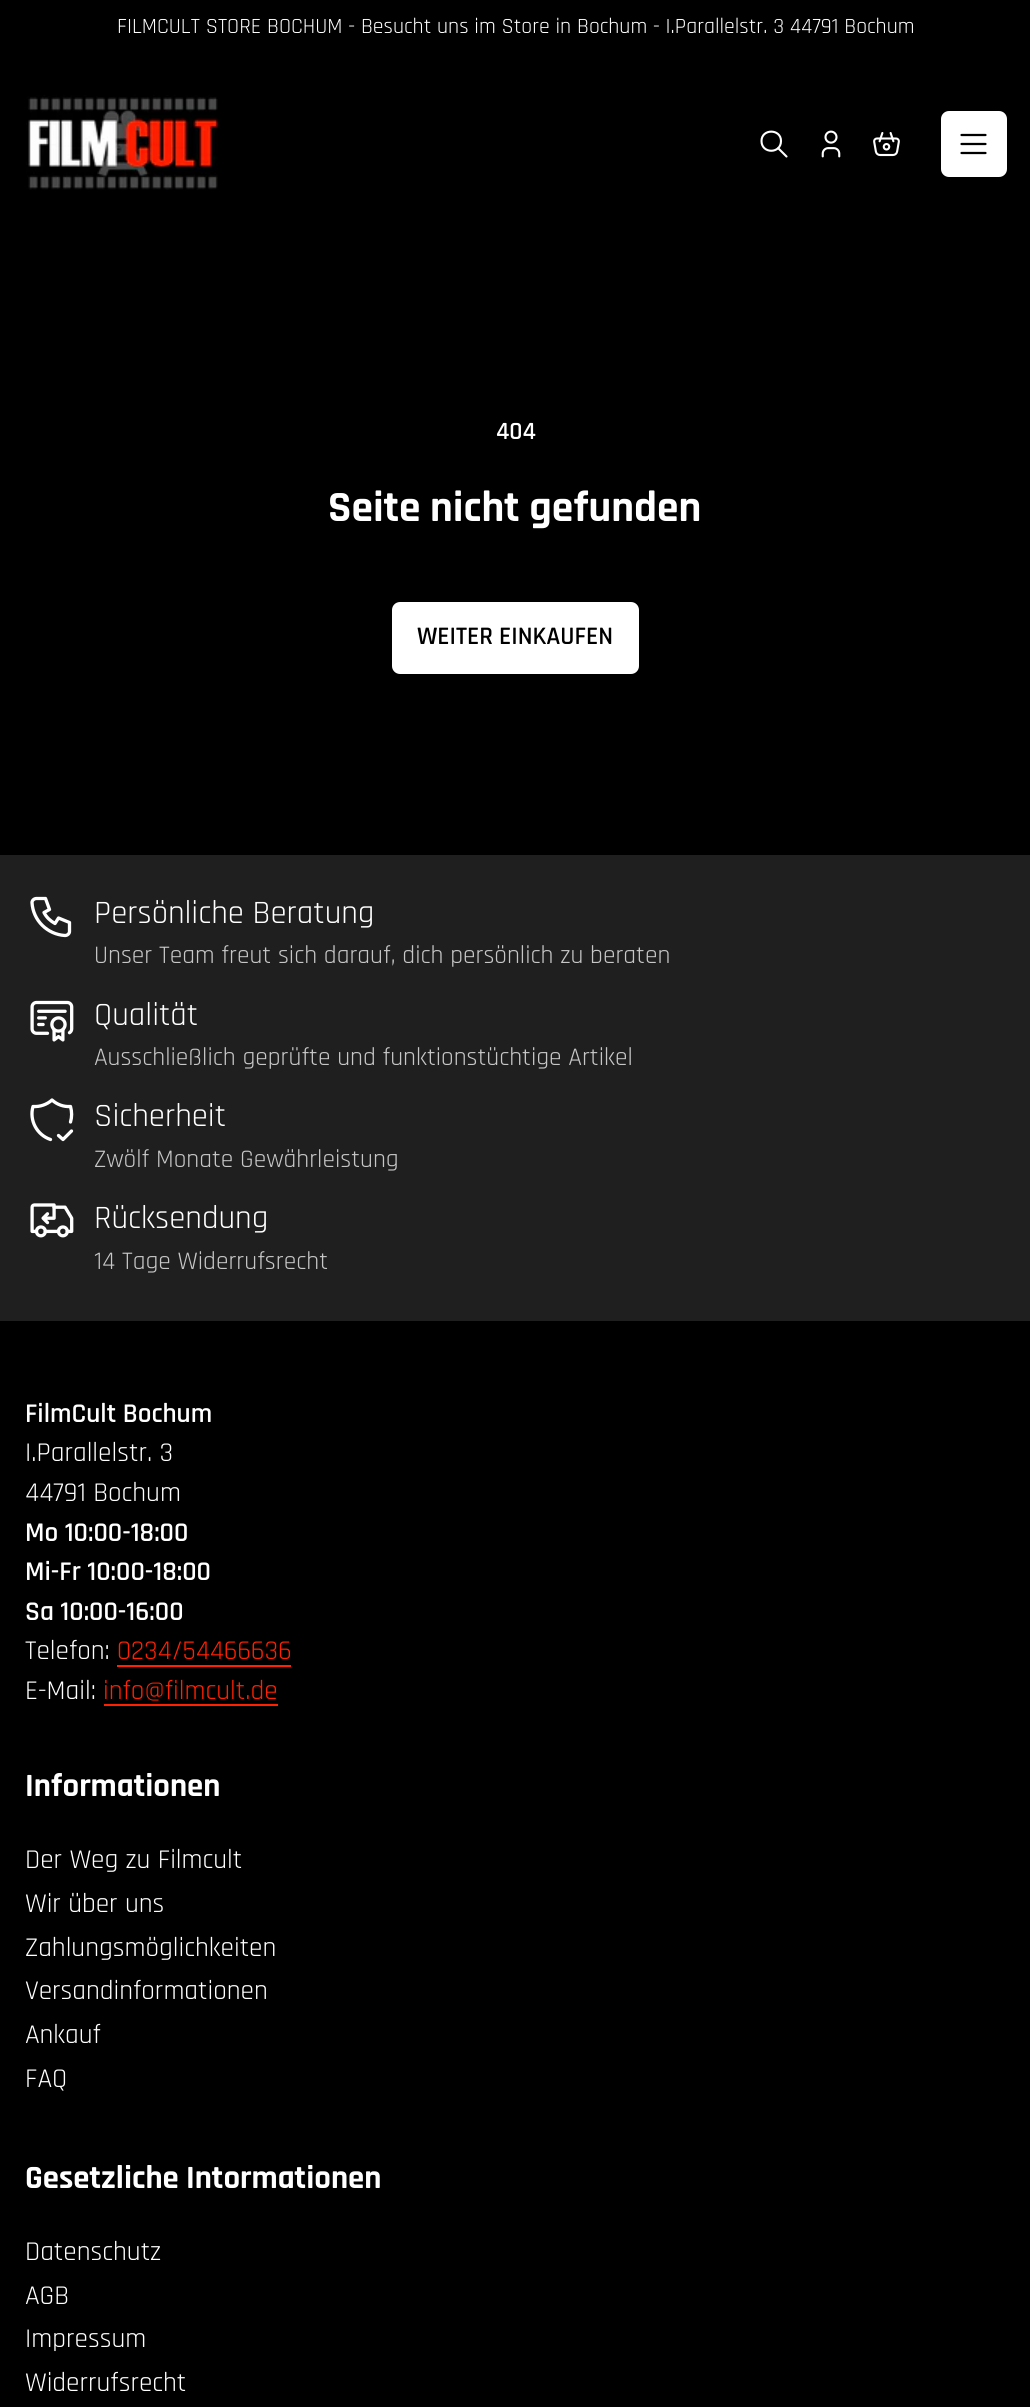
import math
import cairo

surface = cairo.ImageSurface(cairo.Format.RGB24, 1030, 2407)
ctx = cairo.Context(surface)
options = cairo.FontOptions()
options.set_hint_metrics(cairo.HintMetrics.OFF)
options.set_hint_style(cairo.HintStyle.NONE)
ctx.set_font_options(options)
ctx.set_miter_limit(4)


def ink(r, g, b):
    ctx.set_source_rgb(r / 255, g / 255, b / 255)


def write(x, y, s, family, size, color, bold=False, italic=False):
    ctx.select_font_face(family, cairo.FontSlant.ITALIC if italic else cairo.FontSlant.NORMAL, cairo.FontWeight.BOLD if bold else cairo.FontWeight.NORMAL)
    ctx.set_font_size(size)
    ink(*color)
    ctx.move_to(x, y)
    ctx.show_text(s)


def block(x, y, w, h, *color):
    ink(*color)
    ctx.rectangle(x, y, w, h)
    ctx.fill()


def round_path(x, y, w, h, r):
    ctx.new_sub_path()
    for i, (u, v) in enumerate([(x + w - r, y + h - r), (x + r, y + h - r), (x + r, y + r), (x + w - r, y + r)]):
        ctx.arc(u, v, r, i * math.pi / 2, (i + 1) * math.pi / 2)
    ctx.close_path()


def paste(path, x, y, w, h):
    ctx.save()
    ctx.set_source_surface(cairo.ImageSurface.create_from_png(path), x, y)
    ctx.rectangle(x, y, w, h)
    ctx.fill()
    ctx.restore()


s1 = dict(family="Rajdhani", size=21.8, color=(255, 255, 255))
s2 = dict(family="Rajdhani SemiBold", size=25, color=(255, 255, 255))
s3 = dict(family="Rajdhani", size=43.5, color=(255, 255, 255), bold=True)
s4 = dict(family="Rajdhani SemiBold", size=25.4, color=(0, 0, 0))
s5 = dict(family="Rajdhani", size=32.75, color=(255, 255, 255))
s6 = dict(family="Rajdhani", size=25.4, color=(199, 199, 199))
s7 = dict(family="Rajdhani SemiBold", size=27.25, color=(255, 255, 255))
s8 = dict(family="Rajdhani", size=27.25, color=(255, 255, 255))
s9 = dict(family="Rajdhani", size=27.25, color=(255, 33, 0))
s10 = dict(family="Rajdhani", size=32.75, color=(255, 255, 255), bold=True)

ink(0, 0, 0)
ctx.paint()
write(117, 33, "FILMCULT STORE BOCHUM - Besucht uns im Store in Bochum - I.Parallelstr. 3 44791 Bochum", **s1)
paste("pic1.png", 26, 95, 194, 95)
ctx.new_path()
ctx.move_to(761.5, 141)
ctx.curve_to(761.5, 154, 781, 154, 781, 141)
ctx.curve_to(781, 128.5, 761.5, 128.5, 761.5, 141)
ctx.move_to(786.5, 156.5)
ctx.line_to(778, 148)
ctx.set_line_width(2.1)
ctx.set_line_cap(cairo.LineCap.ROUND)
ctx.set_line_join(cairo.LineJoin.ROUND)
ctx.stroke()
paste("pic2.png", 821, 130, 20, 28)
paste("pic3.png", 873, 132, 27, 25)
round_path(942, 112, 64, 64, 7)
ctx.fill_preserve()
ctx.set_line_width(2)
ctx.set_line_cap(cairo.LineCap.BUTT)
ctx.set_line_join(cairo.LineJoin.MITER)
ctx.stroke()
ctx.new_path()
ctx.move_to(961.5, 135)
ctx.line_to(985.5, 135)
ctx.move_to(961.5, 144)
ctx.line_to(985.5, 144)
ctx.move_to(961.5, 153)
ctx.line_to(985.5, 153)
ink(0, 0, 0)
ctx.set_line_width(2.2)
ctx.set_line_cap(cairo.LineCap.ROUND)
ctx.set_line_join(cairo.LineJoin.ROUND)
ctx.stroke()
write(496, 439, "404", **s2)
write(328, 521, "Seite nicht gefunden", **s3)
round_path(393, 603, 245, 70, 7)
ctx.fill_preserve()
ctx.set_line_width(2)
ctx.set_line_cap(cairo.LineCap.BUTT)
ctx.set_line_join(cairo.LineJoin.MITER)
ctx.stroke()
write(417, 644, "WEITER EINKAUFEN", **s4)
block(0, 855, 1030, 466, 31, 31, 31)
ctx.new_path()
ctx.move_to(36.5, 898.5)
ctx.line_to(45.5, 898.5)
ctx.line_to(49.5, 909.5)
ctx.line_to(44, 912.5)
ctx.curve_to(46.5, 917.5, 50.5, 921, 55, 923.5)
ctx.line_to(58.5, 918)
ctx.line_to(69.5, 922.5)
ctx.line_to(69.5, 931.5)
ctx.curve_to(69.5, 933.5, 67.5, 935.5, 65, 935.5)
ctx.curve_to(47.5, 934.5, 33, 920.5, 32, 902.5)
ctx.curve_to(32, 900.5, 34, 898.5, 36.5, 898.5)
ink(255, 255, 255)
ctx.set_line_width(3.3)
ctx.set_line_cap(cairo.LineCap.ROUND)
ctx.set_line_join(cairo.LineJoin.ROUND)
ctx.stroke()
write(94, 923, "Persönliche Beratung", **s5)
write(94, 963, "Unser Team freut sich darauf, dich persönlich zu beraten", **s6)
paste("pic4.png", 30, 1000, 44, 42)
write(94, 1025, "Qualität", **s5)
write(94, 1065, "Ausschließlich geprüfte und funktionstüchtige Artikel", **s6)
ctx.new_path()
ctx.move_to(50.5, 1139.5)
ctx.curve_to(37, 1135, 29, 1120.5, 33, 1106.5)
ctx.curve_to(40, 1107, 47, 1104.5, 52, 1100)
ctx.curve_to(57, 1104.5, 63.5, 1107, 70.5, 1106.5)
ctx.curve_to(72, 1112, 72, 1117, 70.5, 1122)
ctx.move_to(58.5, 1135.5)
ctx.line_to(63, 1139.5)
ctx.line_to(71.5, 1131)
ink(255, 255, 255)
ctx.stroke()
write(94, 1126, "Sicherheit", **s5)
write(94, 1167, "Zwölf Monate Gewährleistung", **s6)
paste("pic5.png", 30, 1203, 44, 35)
write(94, 1228, "Rücksendung", **s5)
write(94, 1269, "14 Tage Widerrufsrecht", **s6)
write(25, 1422, "FilmCult Bochum", **s7)
write(25, 1461, "I.Parallelstr. 3", **s8)
write(25, 1501, "44791 Bochum", **s8)
write(25, 1541, "Mo 10:00-18:00", **s7)
write(25, 1580, "Mi-Fr 10:00-18:00", **s7)
write(25, 1620, "Sa 10:00-16:00", **s7)
write(25, 1659, "Telefon:", **s8)
write(117, 1659, "0234/54466636", **s9)
block(117, 1665, 174, 2, 255, 33, 0)
write(25, 1699, "E-Mail:", **s8)
write(103, 1699, "info@filmcult.de", **s9)
block(104, 1704, 174, 2, 255, 33, 0)
write(25, 1796, "Informationen", **s10)
write(25, 1868, "Der Weg zu Filmcult", **s8)
write(25, 1912, "Wir über uns", **s8)
write(25, 1956, "Zahlungsmöglichkeiten", **s8)
write(25, 1999, "Versandinformationen", **s8)
write(25, 2043, "Ankauf", **s8)
write(25, 2087, "FAQ", **s8)
write(25, 2188, "Gesetzliche Intormationen", **s10)
write(25, 2260, "Datenschutz", **s8)
write(25, 2304, "AGB", **s8)
write(25, 2347, "Impressum", **s8)
write(25, 2391, "Widerrufsrecht", **s8)
surface.write_to_png("screenshot.png")
